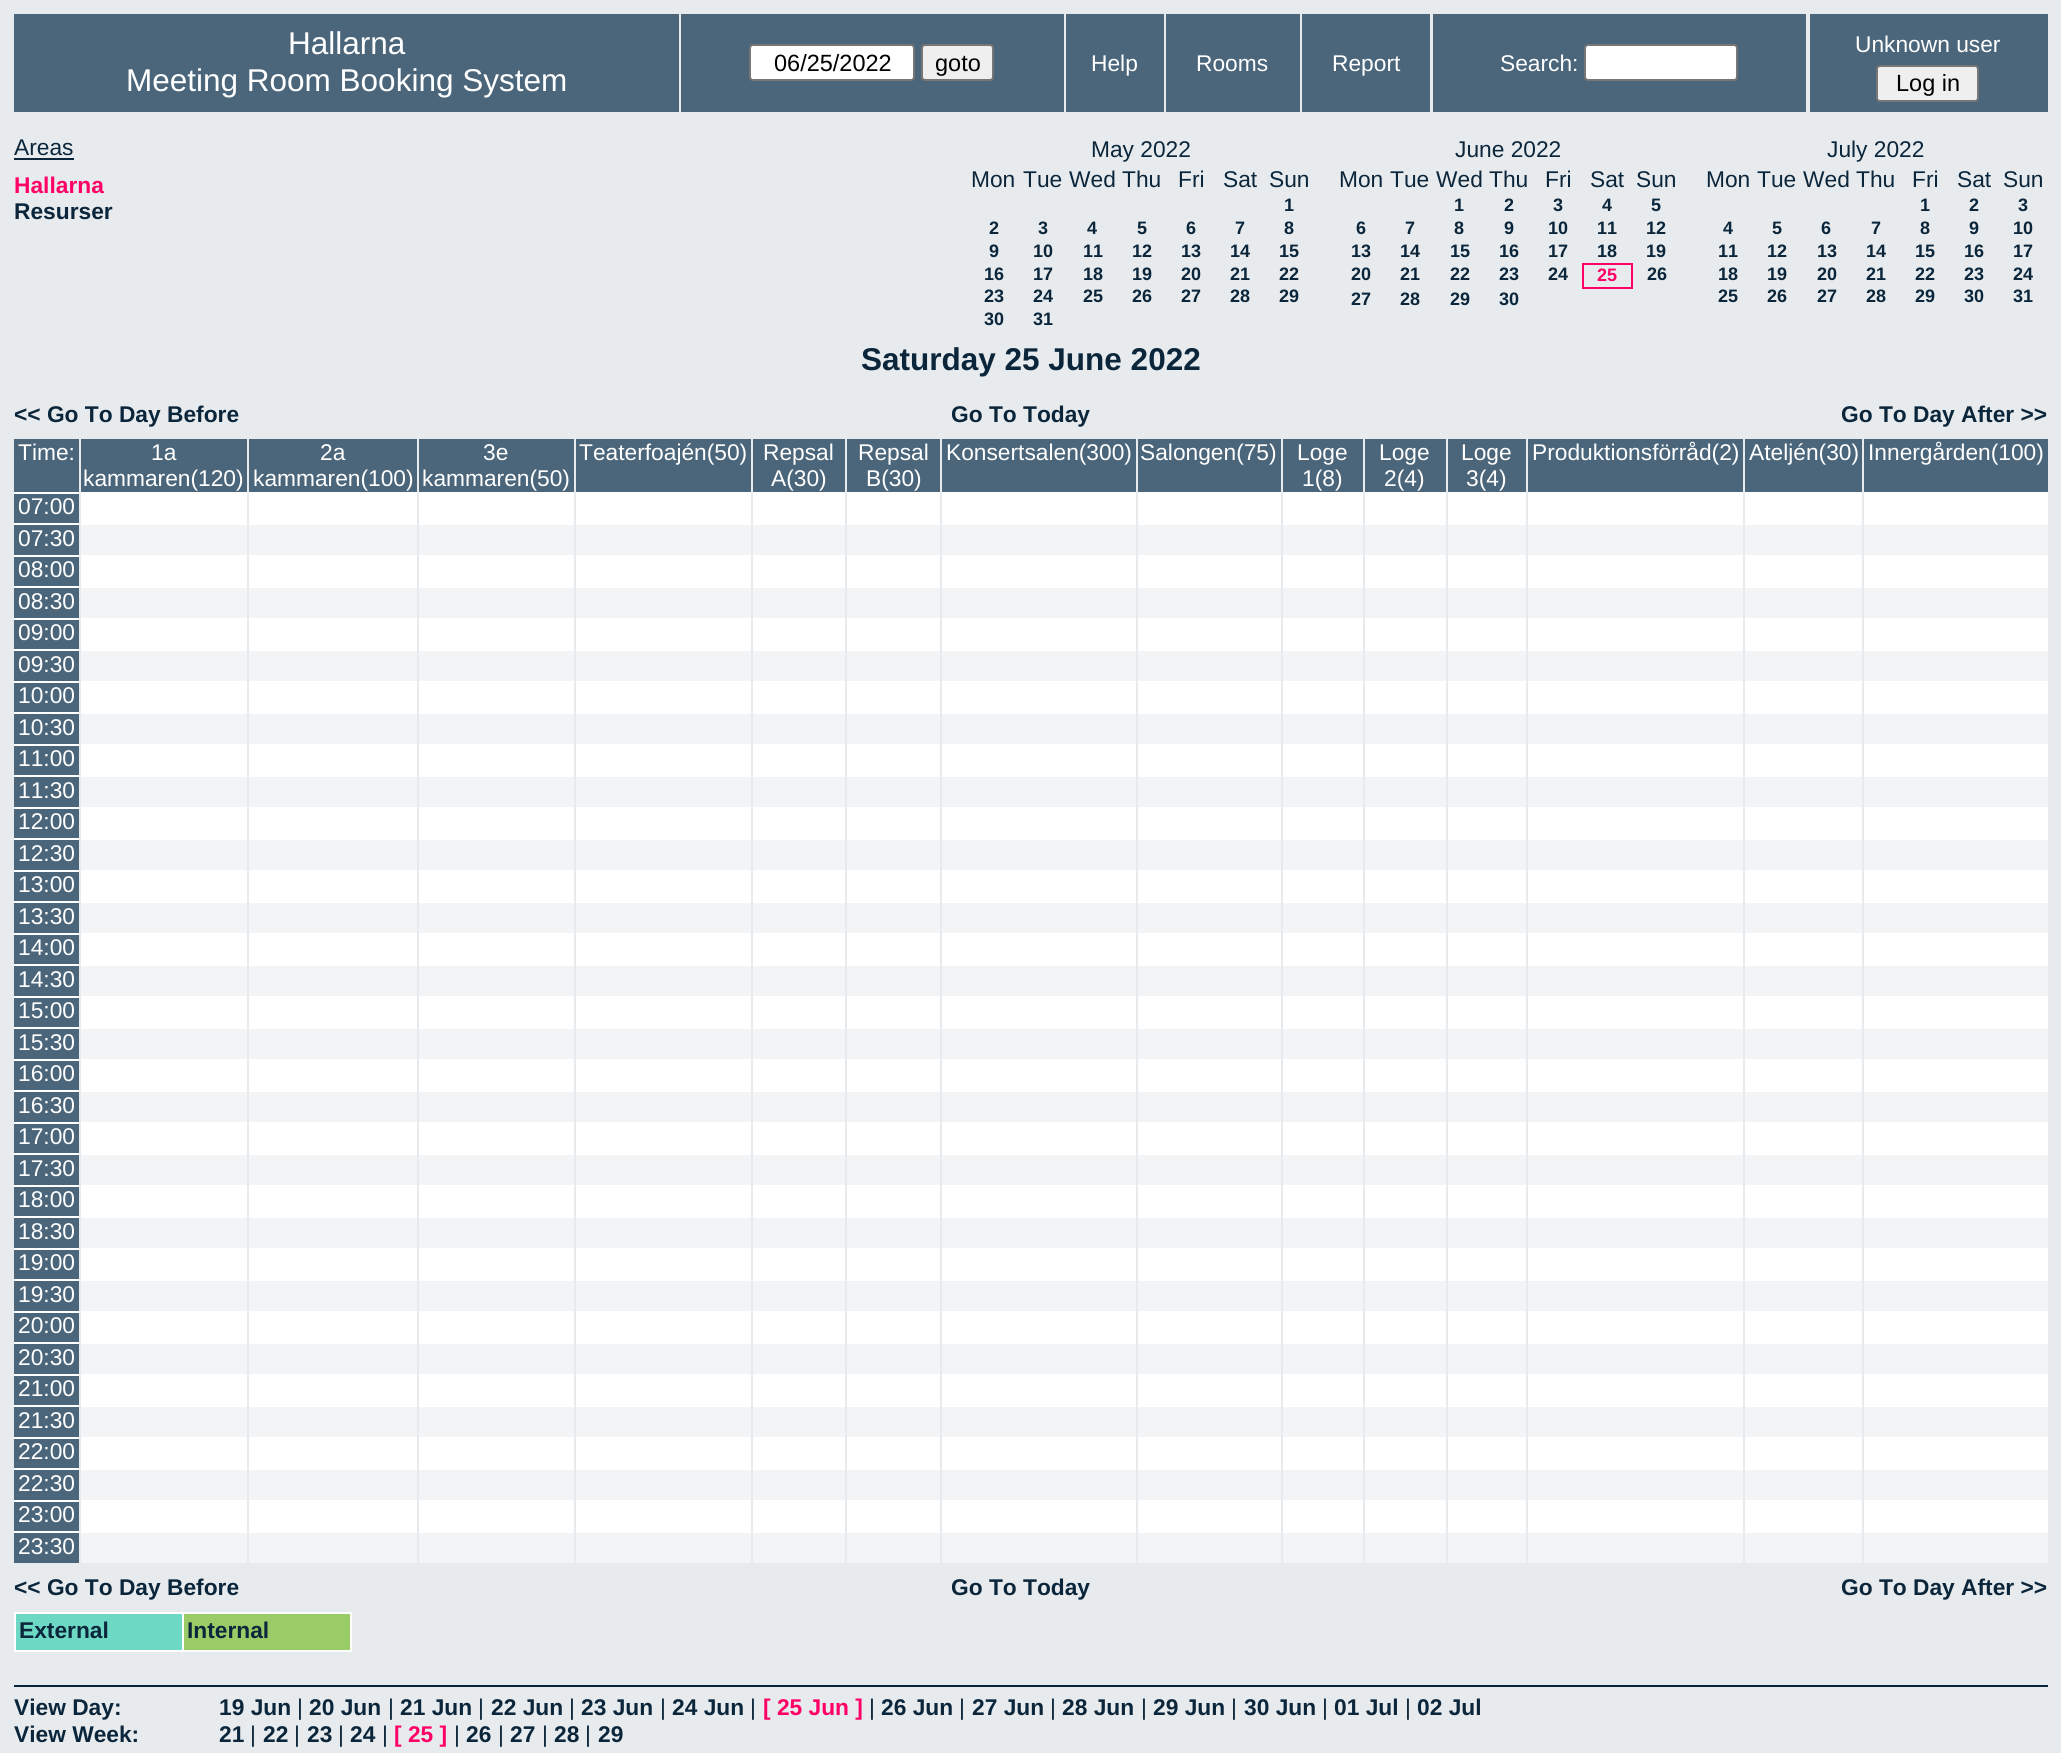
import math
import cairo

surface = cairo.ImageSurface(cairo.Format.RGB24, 2061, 1753)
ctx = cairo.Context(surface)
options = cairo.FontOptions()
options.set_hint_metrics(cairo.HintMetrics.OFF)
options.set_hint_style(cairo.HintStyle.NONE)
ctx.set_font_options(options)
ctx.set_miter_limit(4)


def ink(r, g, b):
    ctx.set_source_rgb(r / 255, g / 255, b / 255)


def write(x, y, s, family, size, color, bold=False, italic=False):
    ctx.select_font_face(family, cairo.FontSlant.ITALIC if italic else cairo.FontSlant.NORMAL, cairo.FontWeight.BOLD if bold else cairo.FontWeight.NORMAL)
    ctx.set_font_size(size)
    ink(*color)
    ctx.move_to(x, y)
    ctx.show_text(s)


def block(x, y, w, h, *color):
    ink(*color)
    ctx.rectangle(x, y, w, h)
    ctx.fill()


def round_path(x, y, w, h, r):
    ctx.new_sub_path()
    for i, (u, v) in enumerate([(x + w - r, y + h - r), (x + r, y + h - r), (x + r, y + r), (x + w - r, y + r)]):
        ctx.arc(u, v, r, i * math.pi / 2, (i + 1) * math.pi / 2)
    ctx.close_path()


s1 = dict(family="Liberation Sans", size=31.5, color=(255, 255, 255))
s2 = dict(family="Liberation Sans", size=23.5, color=(0, 0, 0))
s3 = dict(family="Liberation Sans", size=22.75, color=(255, 255, 255))
s4 = dict(family="Liberation Sans", size=22.75, color=(11, 38, 59))
s5 = dict(family="Liberation Sans", size=22.75, color=(255, 0, 102), bold=True)
s6 = dict(family="Liberation Sans", size=22.75, color=(11, 38, 59), bold=True)
s7 = dict(family="Liberation Sans", size=18, color=(11, 38, 59), bold=True)
s8 = dict(family="Liberation Sans", size=18, color=(255, 0, 102), bold=True)
s9 = dict(family="Liberation Sans", size=31.5, color=(11, 38, 59), bold=True)

ink(231, 235, 238)
ctx.paint()
block(14, 14, 665, 98, 75, 102, 123)
write(288, 54, "Hallarna", **s1)
write(126, 91, "Meeting Room Booking System", **s1)
block(681, 14, 383, 98, 75, 102, 123)
ink(255, 255, 255)
round_path(750, 45, 164, 35, 3)
ctx.fill_preserve()
ink(118, 118, 118)
ctx.stroke()
write(774, 71, "06/25/2022", **s2)
ink(239, 239, 239)
round_path(922, 45, 71, 35, 3)
ctx.fill_preserve()
ink(118, 118, 118)
ctx.stroke()
write(935, 71, "goto", **s2)
block(1066, 14, 98, 98, 75, 102, 123)
write(1091, 71, "Help", **s3)
block(1166, 14, 134, 98, 75, 102, 123)
write(1196, 71, "Rooms", **s3)
block(1302, 14, 128, 98, 75, 102, 123)
write(1332, 71, "Report", **s3)
block(1433, 14, 373, 98, 75, 102, 123)
write(1500, 71, "Search:", **s3)
round_path(1585, 45, 152, 35, 3)
ctx.fill_preserve()
ink(118, 118, 118)
ctx.stroke()
block(1810, 14, 238, 98, 75, 102, 123)
write(1855, 52, "Unknown user", **s3)
ink(239, 239, 239)
round_path(1877, 66, 101, 35, 3)
ctx.fill_preserve()
ink(118, 118, 118)
ctx.stroke()
write(1896, 91, "Log in", **s2)
write(14, 155, "Areas", **s4)
block(14, 158, 60, 2, 11, 38, 59)
write(14, 193, "Hallarna", **s5)
write(14, 219, "Resurser", **s6)
write(1091, 157, "May 2022", **s4)
write(971, 187, "Mon", **s4)
write(1023, 187, "Tue", **s4)
write(1069, 187, "Wed", **s4)
write(1122, 187, "Thu", **s4)
write(1178, 187, "Fri", **s4)
write(1223, 187, "Sat", **s4)
write(1269, 187, "Sun", **s4)
write(1284, 211, "1", **s7)
write(989, 234, "2", **s7)
write(1038, 234, "3", **s7)
write(1087, 234, "4", **s7)
write(1137, 234, "5", **s7)
write(1186, 234, "6", **s7)
write(1235, 234, "7", **s7)
write(1284, 234, "8", **s7)
write(989, 257, "9", **s7)
write(1033, 257, "10", **s7)
write(1083, 257, "11", **s7)
write(1132, 257, "12", **s7)
write(1181, 257, "13", **s7)
write(1230, 257, "14", **s7)
write(1279, 257, "15", **s7)
write(984, 280, "16", **s7)
write(1033, 280, "17", **s7)
write(1083, 280, "18", **s7)
write(1132, 280, "19", **s7)
write(1181, 280, "20", **s7)
write(1230, 280, "21", **s7)
write(1279, 280, "22", **s7)
write(984, 302, "23", **s7)
write(1033, 302, "24", **s7)
write(1083, 302, "25", **s7)
write(1132, 302, "26", **s7)
write(1181, 302, "27", **s7)
write(1230, 302, "28", **s7)
write(1279, 302, "29", **s7)
write(984, 325, "30", **s7)
write(1033, 325, "31", **s7)
write(1455, 157, "June 2022", **s4)
write(1339, 187, "Mon", **s4)
write(1390, 187, "Tue", **s4)
write(1436, 187, "Wed", **s4)
write(1489, 187, "Thu", **s4)
write(1545, 187, "Fri", **s4)
write(1590, 187, "Sat", **s4)
write(1636, 187, "Sun", **s4)
write(1454, 211, "1", **s7)
write(1504, 211, "2", **s7)
write(1553, 211, "3", **s7)
write(1602, 211, "4", **s7)
write(1651, 211, "5", **s7)
write(1356, 234, "6", **s7)
write(1405, 234, "7", **s7)
write(1454, 234, "8", **s7)
write(1504, 234, "9", **s7)
write(1548, 234, "10", **s7)
write(1597, 234, "11", **s7)
write(1646, 234, "12", **s7)
write(1351, 257, "13", **s7)
write(1400, 257, "14", **s7)
write(1450, 257, "15", **s7)
write(1499, 257, "16", **s7)
write(1548, 257, "17", **s7)
write(1597, 257, "18", **s7)
write(1646, 257, "19", **s7)
write(1351, 280, "20", **s7)
write(1400, 280, "21", **s7)
write(1450, 280, "22", **s7)
write(1499, 280, "23", **s7)
write(1548, 280, "24", **s7)
block(1582, 263, 51, 2, 255, 0, 102)
block(1631, 263, 2, 26, 255, 0, 102)
block(1582, 287, 51, 2, 255, 0, 102)
block(1582, 263, 2, 26, 255, 0, 102)
write(1597, 281, "25", **s8)
write(1647, 280, "26", **s7)
write(1351, 305, "27", **s7)
write(1400, 305, "28", **s7)
write(1450, 305, "29", **s7)
write(1499, 305, "30", **s7)
write(1827, 157, "July 2022", **s4)
write(1706, 187, "Mon", **s4)
write(1757, 187, "Tue", **s4)
write(1803, 187, "Wed", **s4)
write(1856, 187, "Thu", **s4)
write(1912, 187, "Fri", **s4)
write(1957, 187, "Sat", **s4)
write(2003, 187, "Sun", **s4)
write(1920, 211, "1", **s7)
write(1969, 211, "2", **s7)
write(2018, 211, "3", **s7)
write(1723, 234, "4", **s7)
write(1772, 234, "5", **s7)
write(1821, 234, "6", **s7)
write(1871, 234, "7", **s7)
write(1920, 234, "8", **s7)
write(1969, 234, "9", **s7)
write(2013, 234, "10", **s7)
write(1718, 257, "11", **s7)
write(1767, 257, "12", **s7)
write(1817, 257, "13", **s7)
write(1866, 257, "14", **s7)
write(1915, 257, "15", **s7)
write(1964, 257, "16", **s7)
write(2013, 257, "17", **s7)
write(1718, 280, "18", **s7)
write(1767, 280, "19", **s7)
write(1817, 280, "20", **s7)
write(1866, 280, "21", **s7)
write(1915, 280, "22", **s7)
write(1964, 280, "23", **s7)
write(2013, 280, "24", **s7)
write(1718, 302, "25", **s7)
write(1767, 302, "26", **s7)
write(1817, 302, "27", **s7)
write(1866, 302, "28", **s7)
write(1915, 302, "29", **s7)
write(1964, 302, "30", **s7)
write(2013, 302, "31", **s7)
write(861, 370, "Saturday 25 June 2022", **s9)
write(14, 422, "<< Go To Day Before", **s6)
write(951, 422, "Go To Today", **s6)
write(1841, 422, "Go To Day After >>", **s6)
block(14, 439, 65, 53, 75, 102, 123)
write(18, 460, "Time:", **s3)
block(81, 439, 166, 53, 75, 102, 123)
write(151, 460, "1a", **s3)
write(83, 486, "kammaren(120)", **s3)
block(249, 439, 168, 53, 75, 102, 123)
write(320, 460, "2a", **s3)
write(253, 486, "kammaren(100)", **s3)
block(419, 439, 155, 53, 75, 102, 123)
write(483, 460, "3e", **s3)
write(422, 486, "kammaren(50)", **s3)
block(576, 439, 175, 53, 75, 102, 123)
write(579, 460, "Teaterfoajén(50)", **s3)
block(753, 439, 92, 53, 75, 102, 123)
write(763, 460, "Repsal", **s3)
write(771, 486, "A(30)", **s3)
block(847, 439, 93, 53, 75, 102, 123)
write(858, 460, "Repsal", **s3)
write(866, 486, "B(30)", **s3)
block(942, 439, 194, 53, 75, 102, 123)
write(946, 460, "Konsertsalen(300)", **s3)
block(1138, 439, 143, 53, 75, 102, 123)
write(1140, 460, "Salongen(75)", **s3)
block(1283, 439, 80, 53, 75, 102, 123)
write(1297, 460, "Loge", **s3)
write(1302, 486, "1(8)", **s3)
block(1365, 439, 81, 53, 75, 102, 123)
write(1379, 460, "Loge", **s3)
write(1384, 486, "2(4)", **s3)
block(1448, 439, 78, 53, 75, 102, 123)
write(1461, 460, "Loge", **s3)
write(1466, 486, "3(4)", **s3)
block(1528, 439, 215, 53, 75, 102, 123)
write(1532, 460, "Produktionsförråd(2)", **s3)
block(1745, 439, 117, 53, 75, 102, 123)
write(1749, 460, "Ateljén(30)", **s3)
block(1864, 439, 184, 53, 75, 102, 123)
write(1868, 460, "Innergården(100)", **s3)
block(14, 494, 65, 29, 75, 102, 123)
block(14, 492, 65, 2, 255, 255, 255)
write(18, 514, "07:00", **s3)
block(81, 492, 166, 31, 255, 255, 255)
block(249, 492, 168, 31, 255, 255, 255)
block(419, 492, 155, 31, 255, 255, 255)
block(576, 492, 175, 31, 255, 255, 255)
block(753, 492, 92, 31, 255, 255, 255)
block(847, 492, 93, 31, 255, 255, 255)
block(942, 492, 194, 31, 255, 255, 255)
block(1138, 492, 143, 31, 255, 255, 255)
block(1283, 492, 80, 31, 255, 255, 255)
block(1365, 492, 81, 31, 255, 255, 255)
block(1448, 492, 78, 31, 255, 255, 255)
block(1528, 492, 215, 31, 255, 255, 255)
block(1745, 492, 117, 31, 255, 255, 255)
block(1864, 492, 184, 31, 255, 255, 255)
block(14, 525, 65, 30, 75, 102, 123)
block(14, 523, 2034, 2, 255, 255, 255)
write(18, 546, "07:30", **s3)
block(81, 525, 166, 30, 242, 244, 246)
block(79, 523, 2, 2, 231, 235, 238)
block(249, 525, 168, 30, 242, 244, 246)
block(247, 523, 2, 2, 231, 235, 238)
block(419, 525, 155, 30, 242, 244, 246)
block(417, 523, 2, 2, 231, 235, 238)
block(576, 525, 175, 30, 242, 244, 246)
block(574, 523, 2, 2, 231, 235, 238)
block(753, 525, 92, 30, 242, 244, 246)
block(751, 523, 2, 2, 231, 235, 238)
block(847, 525, 93, 30, 242, 244, 246)
block(845, 523, 2, 2, 231, 235, 238)
block(942, 525, 194, 30, 242, 244, 246)
block(940, 523, 2, 2, 231, 235, 238)
block(1138, 525, 143, 30, 242, 244, 246)
block(1136, 523, 2, 2, 231, 235, 238)
block(1283, 525, 80, 30, 242, 244, 246)
block(1281, 523, 2, 2, 231, 235, 238)
block(1365, 525, 81, 30, 242, 244, 246)
block(1363, 523, 2, 2, 231, 235, 238)
block(1448, 525, 78, 30, 242, 244, 246)
block(1446, 523, 2, 2, 231, 235, 238)
block(1528, 525, 215, 30, 242, 244, 246)
block(1526, 523, 2, 2, 231, 235, 238)
block(1745, 525, 117, 30, 242, 244, 246)
block(1743, 523, 2, 2, 231, 235, 238)
block(1864, 525, 184, 30, 242, 244, 246)
block(1862, 523, 2, 2, 231, 235, 238)
block(14, 557, 65, 29, 75, 102, 123)
block(14, 555, 65, 2, 255, 255, 255)
write(18, 577, "08:00", **s3)
block(81, 555, 166, 31, 255, 255, 255)
block(249, 555, 168, 31, 255, 255, 255)
block(419, 555, 155, 31, 255, 255, 255)
block(576, 555, 175, 31, 255, 255, 255)
block(753, 555, 92, 31, 255, 255, 255)
block(847, 555, 93, 31, 255, 255, 255)
block(942, 555, 194, 31, 255, 255, 255)
block(1138, 555, 143, 31, 255, 255, 255)
block(1283, 555, 80, 31, 255, 255, 255)
block(1365, 555, 81, 31, 255, 255, 255)
block(1448, 555, 78, 31, 255, 255, 255)
block(1528, 555, 215, 31, 255, 255, 255)
block(1745, 555, 117, 31, 255, 255, 255)
block(1864, 555, 184, 31, 255, 255, 255)
block(14, 588, 65, 30, 75, 102, 123)
block(14, 586, 2034, 2, 255, 255, 255)
write(18, 609, "08:30", **s3)
block(81, 588, 166, 30, 242, 244, 246)
block(79, 586, 2, 2, 231, 235, 238)
block(249, 588, 168, 30, 242, 244, 246)
block(247, 586, 2, 2, 231, 235, 238)
block(419, 588, 155, 30, 242, 244, 246)
block(417, 586, 2, 2, 231, 235, 238)
block(576, 588, 175, 30, 242, 244, 246)
block(574, 586, 2, 2, 231, 235, 238)
block(753, 588, 92, 30, 242, 244, 246)
block(751, 586, 2, 2, 231, 235, 238)
block(847, 588, 93, 30, 242, 244, 246)
block(845, 586, 2, 2, 231, 235, 238)
block(942, 588, 194, 30, 242, 244, 246)
block(940, 586, 2, 2, 231, 235, 238)
block(1138, 588, 143, 30, 242, 244, 246)
block(1136, 586, 2, 2, 231, 235, 238)
block(1283, 588, 80, 30, 242, 244, 246)
block(1281, 586, 2, 2, 231, 235, 238)
block(1365, 588, 81, 30, 242, 244, 246)
block(1363, 586, 2, 2, 231, 235, 238)
block(1448, 588, 78, 30, 242, 244, 246)
block(1446, 586, 2, 2, 231, 235, 238)
block(1528, 588, 215, 30, 242, 244, 246)
block(1526, 586, 2, 2, 231, 235, 238)
block(1745, 588, 117, 30, 242, 244, 246)
block(1743, 586, 2, 2, 231, 235, 238)
block(1864, 588, 184, 30, 242, 244, 246)
block(1862, 586, 2, 2, 231, 235, 238)
block(14, 620, 65, 29, 75, 102, 123)
block(14, 618, 65, 2, 255, 255, 255)
write(18, 640, "09:00", **s3)
block(81, 618, 166, 31, 255, 255, 255)
block(249, 618, 168, 31, 255, 255, 255)
block(419, 618, 155, 31, 255, 255, 255)
block(576, 618, 175, 31, 255, 255, 255)
block(753, 618, 92, 31, 255, 255, 255)
block(847, 618, 93, 31, 255, 255, 255)
block(942, 618, 194, 31, 255, 255, 255)
block(1138, 618, 143, 31, 255, 255, 255)
block(1283, 618, 80, 31, 255, 255, 255)
block(1365, 618, 81, 31, 255, 255, 255)
block(1448, 618, 78, 31, 255, 255, 255)
block(1528, 618, 215, 31, 255, 255, 255)
block(1745, 618, 117, 31, 255, 255, 255)
block(1864, 618, 184, 31, 255, 255, 255)
block(14, 651, 65, 30, 75, 102, 123)
block(14, 649, 2034, 2, 255, 255, 255)
write(18, 672, "09:30", **s3)
block(81, 651, 166, 30, 242, 244, 246)
block(79, 649, 2, 2, 231, 235, 238)
block(249, 651, 168, 30, 242, 244, 246)
block(247, 649, 2, 2, 231, 235, 238)
block(419, 651, 155, 30, 242, 244, 246)
block(417, 649, 2, 2, 231, 235, 238)
block(576, 651, 175, 30, 242, 244, 246)
block(574, 649, 2, 2, 231, 235, 238)
block(753, 651, 92, 30, 242, 244, 246)
block(751, 649, 2, 2, 231, 235, 238)
block(847, 651, 93, 30, 242, 244, 246)
block(845, 649, 2, 2, 231, 235, 238)
block(942, 651, 194, 30, 242, 244, 246)
block(940, 649, 2, 2, 231, 235, 238)
block(1138, 651, 143, 30, 242, 244, 246)
block(1136, 649, 2, 2, 231, 235, 238)
block(1283, 651, 80, 30, 242, 244, 246)
block(1281, 649, 2, 2, 231, 235, 238)
block(1365, 651, 81, 30, 242, 244, 246)
block(1363, 649, 2, 2, 231, 235, 238)
block(1448, 651, 78, 30, 242, 244, 246)
block(1446, 649, 2, 2, 231, 235, 238)
block(1528, 651, 215, 30, 242, 244, 246)
block(1526, 649, 2, 2, 231, 235, 238)
block(1745, 651, 117, 30, 242, 244, 246)
block(1743, 649, 2, 2, 231, 235, 238)
block(1864, 651, 184, 30, 242, 244, 246)
block(1862, 649, 2, 2, 231, 235, 238)
block(14, 683, 65, 29, 75, 102, 123)
block(14, 681, 65, 2, 255, 255, 255)
write(18, 703, "10:00", **s3)
block(81, 681, 166, 31, 255, 255, 255)
block(249, 681, 168, 31, 255, 255, 255)
block(419, 681, 155, 31, 255, 255, 255)
block(576, 681, 175, 31, 255, 255, 255)
block(753, 681, 92, 31, 255, 255, 255)
block(847, 681, 93, 31, 255, 255, 255)
block(942, 681, 194, 31, 255, 255, 255)
block(1138, 681, 143, 31, 255, 255, 255)
block(1283, 681, 80, 31, 255, 255, 255)
block(1365, 681, 81, 31, 255, 255, 255)
block(1448, 681, 78, 31, 255, 255, 255)
block(1528, 681, 215, 31, 255, 255, 255)
block(1745, 681, 117, 31, 255, 255, 255)
block(1864, 681, 184, 31, 255, 255, 255)
block(14, 714, 65, 30, 75, 102, 123)
block(14, 712, 2034, 2, 255, 255, 255)
write(18, 735, "10:30", **s3)
block(81, 714, 166, 30, 242, 244, 246)
block(79, 712, 2, 2, 231, 235, 238)
block(249, 714, 168, 30, 242, 244, 246)
block(247, 712, 2, 2, 231, 235, 238)
block(419, 714, 155, 30, 242, 244, 246)
block(417, 712, 2, 2, 231, 235, 238)
block(576, 714, 175, 30, 242, 244, 246)
block(574, 712, 2, 2, 231, 235, 238)
block(753, 714, 92, 30, 242, 244, 246)
block(751, 712, 2, 2, 231, 235, 238)
block(847, 714, 93, 30, 242, 244, 246)
block(845, 712, 2, 2, 231, 235, 238)
block(942, 714, 194, 30, 242, 244, 246)
block(940, 712, 2, 2, 231, 235, 238)
block(1138, 714, 143, 30, 242, 244, 246)
block(1136, 712, 2, 2, 231, 235, 238)
block(1283, 714, 80, 30, 242, 244, 246)
block(1281, 712, 2, 2, 231, 235, 238)
block(1365, 714, 81, 30, 242, 244, 246)
block(1363, 712, 2, 2, 231, 235, 238)
block(1448, 714, 78, 30, 242, 244, 246)
block(1446, 712, 2, 2, 231, 235, 238)
block(1528, 714, 215, 30, 242, 244, 246)
block(1526, 712, 2, 2, 231, 235, 238)
block(1745, 714, 117, 30, 242, 244, 246)
block(1743, 712, 2, 2, 231, 235, 238)
block(1864, 714, 184, 30, 242, 244, 246)
block(1862, 712, 2, 2, 231, 235, 238)
block(14, 746, 65, 29, 75, 102, 123)
block(14, 744, 65, 2, 255, 255, 255)
write(18, 766, "11:00", **s3)
block(81, 744, 166, 31, 255, 255, 255)
block(249, 744, 168, 31, 255, 255, 255)
block(419, 744, 155, 31, 255, 255, 255)
block(576, 744, 175, 31, 255, 255, 255)
block(753, 744, 92, 31, 255, 255, 255)
block(847, 744, 93, 31, 255, 255, 255)
block(942, 744, 194, 31, 255, 255, 255)
block(1138, 744, 143, 31, 255, 255, 255)
block(1283, 744, 80, 31, 255, 255, 255)
block(1365, 744, 81, 31, 255, 255, 255)
block(1448, 744, 78, 31, 255, 255, 255)
block(1528, 744, 215, 31, 255, 255, 255)
block(1745, 744, 117, 31, 255, 255, 255)
block(1864, 744, 184, 31, 255, 255, 255)
block(14, 777, 65, 30, 75, 102, 123)
block(14, 775, 2034, 2, 255, 255, 255)
write(18, 798, "11:30", **s3)
block(81, 777, 166, 30, 242, 244, 246)
block(79, 775, 2, 2, 231, 235, 238)
block(249, 777, 168, 30, 242, 244, 246)
block(247, 775, 2, 2, 231, 235, 238)
block(419, 777, 155, 30, 242, 244, 246)
block(417, 775, 2, 2, 231, 235, 238)
block(576, 777, 175, 30, 242, 244, 246)
block(574, 775, 2, 2, 231, 235, 238)
block(753, 777, 92, 30, 242, 244, 246)
block(751, 775, 2, 2, 231, 235, 238)
block(847, 777, 93, 30, 242, 244, 246)
block(845, 775, 2, 2, 231, 235, 238)
block(942, 777, 194, 30, 242, 244, 246)
block(940, 775, 2, 2, 231, 235, 238)
block(1138, 777, 143, 30, 242, 244, 246)
block(1136, 775, 2, 2, 231, 235, 238)
block(1283, 777, 80, 30, 242, 244, 246)
block(1281, 775, 2, 2, 231, 235, 238)
block(1365, 777, 81, 30, 242, 244, 246)
block(1363, 775, 2, 2, 231, 235, 238)
block(1448, 777, 78, 30, 242, 244, 246)
block(1446, 775, 2, 2, 231, 235, 238)
block(1528, 777, 215, 30, 242, 244, 246)
block(1526, 775, 2, 2, 231, 235, 238)
block(1745, 777, 117, 30, 242, 244, 246)
block(1743, 775, 2, 2, 231, 235, 238)
block(1864, 777, 184, 30, 242, 244, 246)
block(1862, 775, 2, 2, 231, 235, 238)
block(14, 809, 65, 29, 75, 102, 123)
block(14, 807, 65, 2, 255, 255, 255)
write(18, 829, "12:00", **s3)
block(81, 807, 166, 31, 255, 255, 255)
block(249, 807, 168, 31, 255, 255, 255)
block(419, 807, 155, 31, 255, 255, 255)
block(576, 807, 175, 31, 255, 255, 255)
block(753, 807, 92, 31, 255, 255, 255)
block(847, 807, 93, 31, 255, 255, 255)
block(942, 807, 194, 31, 255, 255, 255)
block(1138, 807, 143, 31, 255, 255, 255)
block(1283, 807, 80, 31, 255, 255, 255)
block(1365, 807, 81, 31, 255, 255, 255)
block(1448, 807, 78, 31, 255, 255, 255)
block(1528, 807, 215, 31, 255, 255, 255)
block(1745, 807, 117, 31, 255, 255, 255)
block(1864, 807, 184, 31, 255, 255, 255)
block(14, 840, 65, 30, 75, 102, 123)
block(14, 838, 2034, 2, 255, 255, 255)
write(18, 861, "12:30", **s3)
block(81, 840, 166, 30, 242, 244, 246)
block(79, 838, 2, 2, 231, 235, 238)
block(249, 840, 168, 30, 242, 244, 246)
block(247, 838, 2, 2, 231, 235, 238)
block(419, 840, 155, 30, 242, 244, 246)
block(417, 838, 2, 2, 231, 235, 238)
block(576, 840, 175, 30, 242, 244, 246)
block(574, 838, 2, 2, 231, 235, 238)
block(753, 840, 92, 30, 242, 244, 246)
block(751, 838, 2, 2, 231, 235, 238)
block(847, 840, 93, 30, 242, 244, 246)
block(845, 838, 2, 2, 231, 235, 238)
block(942, 840, 194, 30, 242, 244, 246)
block(940, 838, 2, 2, 231, 235, 238)
block(1138, 840, 143, 30, 242, 244, 246)
block(1136, 838, 2, 2, 231, 235, 238)
block(1283, 840, 80, 30, 242, 244, 246)
block(1281, 838, 2, 2, 231, 235, 238)
block(1365, 840, 81, 30, 242, 244, 246)
block(1363, 838, 2, 2, 231, 235, 238)
block(1448, 840, 78, 30, 242, 244, 246)
block(1446, 838, 2, 2, 231, 235, 238)
block(1528, 840, 215, 30, 242, 244, 246)
block(1526, 838, 2, 2, 231, 235, 238)
block(1745, 840, 117, 30, 242, 244, 246)
block(1743, 838, 2, 2, 231, 235, 238)
block(1864, 840, 184, 30, 242, 244, 246)
block(1862, 838, 2, 2, 231, 235, 238)
block(14, 872, 65, 29, 75, 102, 123)
block(14, 870, 65, 2, 255, 255, 255)
write(18, 892, "13:00", **s3)
block(81, 870, 166, 31, 255, 255, 255)
block(249, 870, 168, 31, 255, 255, 255)
block(419, 870, 155, 31, 255, 255, 255)
block(576, 870, 175, 31, 255, 255, 255)
block(753, 870, 92, 31, 255, 255, 255)
block(847, 870, 93, 31, 255, 255, 255)
block(942, 870, 194, 31, 255, 255, 255)
block(1138, 870, 143, 31, 255, 255, 255)
block(1283, 870, 80, 31, 255, 255, 255)
block(1365, 870, 81, 31, 255, 255, 255)
block(1448, 870, 78, 31, 255, 255, 255)
block(1528, 870, 215, 31, 255, 255, 255)
block(1745, 870, 117, 31, 255, 255, 255)
block(1864, 870, 184, 31, 255, 255, 255)
block(14, 903, 65, 30, 75, 102, 123)
block(14, 901, 2034, 2, 255, 255, 255)
write(18, 924, "13:30", **s3)
block(81, 903, 166, 30, 242, 244, 246)
block(79, 901, 2, 2, 231, 235, 238)
block(249, 903, 168, 30, 242, 244, 246)
block(247, 901, 2, 2, 231, 235, 238)
block(419, 903, 155, 30, 242, 244, 246)
block(417, 901, 2, 2, 231, 235, 238)
block(576, 903, 175, 30, 242, 244, 246)
block(574, 901, 2, 2, 231, 235, 238)
block(753, 903, 92, 30, 242, 244, 246)
block(751, 901, 2, 2, 231, 235, 238)
block(847, 903, 93, 30, 242, 244, 246)
block(845, 901, 2, 2, 231, 235, 238)
block(942, 903, 194, 30, 242, 244, 246)
block(940, 901, 2, 2, 231, 235, 238)
block(1138, 903, 143, 30, 242, 244, 246)
block(1136, 901, 2, 2, 231, 235, 238)
block(1283, 903, 80, 30, 242, 244, 246)
block(1281, 901, 2, 2, 231, 235, 238)
block(1365, 903, 81, 30, 242, 244, 246)
block(1363, 901, 2, 2, 231, 235, 238)
block(1448, 903, 78, 30, 242, 244, 246)
block(1446, 901, 2, 2, 231, 235, 238)
block(1528, 903, 215, 30, 242, 244, 246)
block(1526, 901, 2, 2, 231, 235, 238)
block(1745, 903, 117, 30, 242, 244, 246)
block(1743, 901, 2, 2, 231, 235, 238)
block(1864, 903, 184, 30, 242, 244, 246)
block(1862, 901, 2, 2, 231, 235, 238)
block(14, 935, 65, 29, 75, 102, 123)
block(14, 933, 65, 2, 255, 255, 255)
write(18, 955, "14:00", **s3)
block(81, 933, 166, 31, 255, 255, 255)
block(249, 933, 168, 31, 255, 255, 255)
block(419, 933, 155, 31, 255, 255, 255)
block(576, 933, 175, 31, 255, 255, 255)
block(753, 933, 92, 31, 255, 255, 255)
block(847, 933, 93, 31, 255, 255, 255)
block(942, 933, 194, 31, 255, 255, 255)
block(1138, 933, 143, 31, 255, 255, 255)
block(1283, 933, 80, 31, 255, 255, 255)
block(1365, 933, 81, 31, 255, 255, 255)
block(1448, 933, 78, 31, 255, 255, 255)
block(1528, 933, 215, 31, 255, 255, 255)
block(1745, 933, 117, 31, 255, 255, 255)
block(1864, 933, 184, 31, 255, 255, 255)
block(14, 966, 65, 30, 75, 102, 123)
block(14, 964, 2034, 2, 255, 255, 255)
write(18, 987, "14:30", **s3)
block(81, 966, 166, 30, 242, 244, 246)
block(79, 964, 2, 2, 231, 235, 238)
block(249, 966, 168, 30, 242, 244, 246)
block(247, 964, 2, 2, 231, 235, 238)
block(419, 966, 155, 30, 242, 244, 246)
block(417, 964, 2, 2, 231, 235, 238)
block(576, 966, 175, 30, 242, 244, 246)
block(574, 964, 2, 2, 231, 235, 238)
block(753, 966, 92, 30, 242, 244, 246)
block(751, 964, 2, 2, 231, 235, 238)
block(847, 966, 93, 30, 242, 244, 246)
block(845, 964, 2, 2, 231, 235, 238)
block(942, 966, 194, 30, 242, 244, 246)
block(940, 964, 2, 2, 231, 235, 238)
block(1138, 966, 143, 30, 242, 244, 246)
block(1136, 964, 2, 2, 231, 235, 238)
block(1283, 966, 80, 30, 242, 244, 246)
block(1281, 964, 2, 2, 231, 235, 238)
block(1365, 966, 81, 30, 242, 244, 246)
block(1363, 964, 2, 2, 231, 235, 238)
block(1448, 966, 78, 30, 242, 244, 246)
block(1446, 964, 2, 2, 231, 235, 238)
block(1528, 966, 215, 30, 242, 244, 246)
block(1526, 964, 2, 2, 231, 235, 238)
block(1745, 966, 117, 30, 242, 244, 246)
block(1743, 964, 2, 2, 231, 235, 238)
block(1864, 966, 184, 30, 242, 244, 246)
block(1862, 964, 2, 2, 231, 235, 238)
block(14, 998, 65, 29, 75, 102, 123)
block(14, 996, 65, 2, 255, 255, 255)
write(18, 1018, "15:00", **s3)
block(81, 996, 166, 31, 255, 255, 255)
block(249, 996, 168, 31, 255, 255, 255)
block(419, 996, 155, 31, 255, 255, 255)
block(576, 996, 175, 31, 255, 255, 255)
block(753, 996, 92, 31, 255, 255, 255)
block(847, 996, 93, 31, 255, 255, 255)
block(942, 996, 194, 31, 255, 255, 255)
block(1138, 996, 143, 31, 255, 255, 255)
block(1283, 996, 80, 31, 255, 255, 255)
block(1365, 996, 81, 31, 255, 255, 255)
block(1448, 996, 78, 31, 255, 255, 255)
block(1528, 996, 215, 31, 255, 255, 255)
block(1745, 996, 117, 31, 255, 255, 255)
block(1864, 996, 184, 31, 255, 255, 255)
block(14, 1029, 65, 30, 75, 102, 123)
block(14, 1027, 2034, 2, 255, 255, 255)
write(18, 1050, "15:30", **s3)
block(81, 1029, 166, 30, 242, 244, 246)
block(79, 1027, 2, 2, 231, 235, 238)
block(249, 1029, 168, 30, 242, 244, 246)
block(247, 1027, 2, 2, 231, 235, 238)
block(419, 1029, 155, 30, 242, 244, 246)
block(417, 1027, 2, 2, 231, 235, 238)
block(576, 1029, 175, 30, 242, 244, 246)
block(574, 1027, 2, 2, 231, 235, 238)
block(753, 1029, 92, 30, 242, 244, 246)
block(751, 1027, 2, 2, 231, 235, 238)
block(847, 1029, 93, 30, 242, 244, 246)
block(845, 1027, 2, 2, 231, 235, 238)
block(942, 1029, 194, 30, 242, 244, 246)
block(940, 1027, 2, 2, 231, 235, 238)
block(1138, 1029, 143, 30, 242, 244, 246)
block(1136, 1027, 2, 2, 231, 235, 238)
block(1283, 1029, 80, 30, 242, 244, 246)
block(1281, 1027, 2, 2, 231, 235, 238)
block(1365, 1029, 81, 30, 242, 244, 246)
block(1363, 1027, 2, 2, 231, 235, 238)
block(1448, 1029, 78, 30, 242, 244, 246)
block(1446, 1027, 2, 2, 231, 235, 238)
block(1528, 1029, 215, 30, 242, 244, 246)
block(1526, 1027, 2, 2, 231, 235, 238)
block(1745, 1029, 117, 30, 242, 244, 246)
block(1743, 1027, 2, 2, 231, 235, 238)
block(1864, 1029, 184, 30, 242, 244, 246)
block(1862, 1027, 2, 2, 231, 235, 238)
block(14, 1061, 65, 29, 75, 102, 123)
block(14, 1059, 65, 2, 255, 255, 255)
write(18, 1081, "16:00", **s3)
block(81, 1059, 166, 31, 255, 255, 255)
block(249, 1059, 168, 31, 255, 255, 255)
block(419, 1059, 155, 31, 255, 255, 255)
block(576, 1059, 175, 31, 255, 255, 255)
block(753, 1059, 92, 31, 255, 255, 255)
block(847, 1059, 93, 31, 255, 255, 255)
block(942, 1059, 194, 31, 255, 255, 255)
block(1138, 1059, 143, 31, 255, 255, 255)
block(1283, 1059, 80, 31, 255, 255, 255)
block(1365, 1059, 81, 31, 255, 255, 255)
block(1448, 1059, 78, 31, 255, 255, 255)
block(1528, 1059, 215, 31, 255, 255, 255)
block(1745, 1059, 117, 31, 255, 255, 255)
block(1864, 1059, 184, 31, 255, 255, 255)
block(14, 1092, 65, 30, 75, 102, 123)
block(14, 1090, 2034, 2, 255, 255, 255)
write(18, 1113, "16:30", **s3)
block(81, 1092, 166, 30, 242, 244, 246)
block(79, 1090, 2, 2, 231, 235, 238)
block(249, 1092, 168, 30, 242, 244, 246)
block(247, 1090, 2, 2, 231, 235, 238)
block(419, 1092, 155, 30, 242, 244, 246)
block(417, 1090, 2, 2, 231, 235, 238)
block(576, 1092, 175, 30, 242, 244, 246)
block(574, 1090, 2, 2, 231, 235, 238)
block(753, 1092, 92, 30, 242, 244, 246)
block(751, 1090, 2, 2, 231, 235, 238)
block(847, 1092, 93, 30, 242, 244, 246)
block(845, 1090, 2, 2, 231, 235, 238)
block(942, 1092, 194, 30, 242, 244, 246)
block(940, 1090, 2, 2, 231, 235, 238)
block(1138, 1092, 143, 30, 242, 244, 246)
block(1136, 1090, 2, 2, 231, 235, 238)
block(1283, 1092, 80, 30, 242, 244, 246)
block(1281, 1090, 2, 2, 231, 235, 238)
block(1365, 1092, 81, 30, 242, 244, 246)
block(1363, 1090, 2, 2, 231, 235, 238)
block(1448, 1092, 78, 30, 242, 244, 246)
block(1446, 1090, 2, 2, 231, 235, 238)
block(1528, 1092, 215, 30, 242, 244, 246)
block(1526, 1090, 2, 2, 231, 235, 238)
block(1745, 1092, 117, 30, 242, 244, 246)
block(1743, 1090, 2, 2, 231, 235, 238)
block(1864, 1092, 184, 30, 242, 244, 246)
block(1862, 1090, 2, 2, 231, 235, 238)
block(14, 1124, 65, 29, 75, 102, 123)
block(14, 1122, 65, 2, 255, 255, 255)
write(18, 1144, "17:00", **s3)
block(81, 1122, 166, 31, 255, 255, 255)
block(249, 1122, 168, 31, 255, 255, 255)
block(419, 1122, 155, 31, 255, 255, 255)
block(576, 1122, 175, 31, 255, 255, 255)
block(753, 1122, 92, 31, 255, 255, 255)
block(847, 1122, 93, 31, 255, 255, 255)
block(942, 1122, 194, 31, 255, 255, 255)
block(1138, 1122, 143, 31, 255, 255, 255)
block(1283, 1122, 80, 31, 255, 255, 255)
block(1365, 1122, 81, 31, 255, 255, 255)
block(1448, 1122, 78, 31, 255, 255, 255)
block(1528, 1122, 215, 31, 255, 255, 255)
block(1745, 1122, 117, 31, 255, 255, 255)
block(1864, 1122, 184, 31, 255, 255, 255)
block(14, 1155, 65, 30, 75, 102, 123)
block(14, 1153, 2034, 2, 255, 255, 255)
write(18, 1176, "17:30", **s3)
block(81, 1155, 166, 30, 242, 244, 246)
block(79, 1153, 2, 2, 231, 235, 238)
block(249, 1155, 168, 30, 242, 244, 246)
block(247, 1153, 2, 2, 231, 235, 238)
block(419, 1155, 155, 30, 242, 244, 246)
block(417, 1153, 2, 2, 231, 235, 238)
block(576, 1155, 175, 30, 242, 244, 246)
block(574, 1153, 2, 2, 231, 235, 238)
block(753, 1155, 92, 30, 242, 244, 246)
block(751, 1153, 2, 2, 231, 235, 238)
block(847, 1155, 93, 30, 242, 244, 246)
block(845, 1153, 2, 2, 231, 235, 238)
block(942, 1155, 194, 30, 242, 244, 246)
block(940, 1153, 2, 2, 231, 235, 238)
block(1138, 1155, 143, 30, 242, 244, 246)
block(1136, 1153, 2, 2, 231, 235, 238)
block(1283, 1155, 80, 30, 242, 244, 246)
block(1281, 1153, 2, 2, 231, 235, 238)
block(1365, 1155, 81, 30, 242, 244, 246)
block(1363, 1153, 2, 2, 231, 235, 238)
block(1448, 1155, 78, 30, 242, 244, 246)
block(1446, 1153, 2, 2, 231, 235, 238)
block(1528, 1155, 215, 30, 242, 244, 246)
block(1526, 1153, 2, 2, 231, 235, 238)
block(1745, 1155, 117, 30, 242, 244, 246)
block(1743, 1153, 2, 2, 231, 235, 238)
block(1864, 1155, 184, 30, 242, 244, 246)
block(1862, 1153, 2, 2, 231, 235, 238)
block(14, 1187, 65, 29, 75, 102, 123)
block(14, 1185, 65, 2, 255, 255, 255)
write(18, 1207, "18:00", **s3)
block(81, 1185, 166, 31, 255, 255, 255)
block(249, 1185, 168, 31, 255, 255, 255)
block(419, 1185, 155, 31, 255, 255, 255)
block(576, 1185, 175, 31, 255, 255, 255)
block(753, 1185, 92, 31, 255, 255, 255)
block(847, 1185, 93, 31, 255, 255, 255)
block(942, 1185, 194, 31, 255, 255, 255)
block(1138, 1185, 143, 31, 255, 255, 255)
block(1283, 1185, 80, 31, 255, 255, 255)
block(1365, 1185, 81, 31, 255, 255, 255)
block(1448, 1185, 78, 31, 255, 255, 255)
block(1528, 1185, 215, 31, 255, 255, 255)
block(1745, 1185, 117, 31, 255, 255, 255)
block(1864, 1185, 184, 31, 255, 255, 255)
block(14, 1218, 65, 30, 75, 102, 123)
block(14, 1216, 2034, 2, 255, 255, 255)
write(18, 1239, "18:30", **s3)
block(81, 1218, 166, 30, 242, 244, 246)
block(79, 1216, 2, 2, 231, 235, 238)
block(249, 1218, 168, 30, 242, 244, 246)
block(247, 1216, 2, 2, 231, 235, 238)
block(419, 1218, 155, 30, 242, 244, 246)
block(417, 1216, 2, 2, 231, 235, 238)
block(576, 1218, 175, 30, 242, 244, 246)
block(574, 1216, 2, 2, 231, 235, 238)
block(753, 1218, 92, 30, 242, 244, 246)
block(751, 1216, 2, 2, 231, 235, 238)
block(847, 1218, 93, 30, 242, 244, 246)
block(845, 1216, 2, 2, 231, 235, 238)
block(942, 1218, 194, 30, 242, 244, 246)
block(940, 1216, 2, 2, 231, 235, 238)
block(1138, 1218, 143, 30, 242, 244, 246)
block(1136, 1216, 2, 2, 231, 235, 238)
block(1283, 1218, 80, 30, 242, 244, 246)
block(1281, 1216, 2, 2, 231, 235, 238)
block(1365, 1218, 81, 30, 242, 244, 246)
block(1363, 1216, 2, 2, 231, 235, 238)
block(1448, 1218, 78, 30, 242, 244, 246)
block(1446, 1216, 2, 2, 231, 235, 238)
block(1528, 1218, 215, 30, 242, 244, 246)
block(1526, 1216, 2, 2, 231, 235, 238)
block(1745, 1218, 117, 30, 242, 244, 246)
block(1743, 1216, 2, 2, 231, 235, 238)
block(1864, 1218, 184, 30, 242, 244, 246)
block(1862, 1216, 2, 2, 231, 235, 238)
block(14, 1250, 65, 29, 75, 102, 123)
block(14, 1248, 65, 2, 255, 255, 255)
write(18, 1270, "19:00", **s3)
block(81, 1248, 166, 31, 255, 255, 255)
block(249, 1248, 168, 31, 255, 255, 255)
block(419, 1248, 155, 31, 255, 255, 255)
block(576, 1248, 175, 31, 255, 255, 255)
block(753, 1248, 92, 31, 255, 255, 255)
block(847, 1248, 93, 31, 255, 255, 255)
block(942, 1248, 194, 31, 255, 255, 255)
block(1138, 1248, 143, 31, 255, 255, 255)
block(1283, 1248, 80, 31, 255, 255, 255)
block(1365, 1248, 81, 31, 255, 255, 255)
block(1448, 1248, 78, 31, 255, 255, 255)
block(1528, 1248, 215, 31, 255, 255, 255)
block(1745, 1248, 117, 31, 255, 255, 255)
block(1864, 1248, 184, 31, 255, 255, 255)
block(14, 1281, 65, 30, 75, 102, 123)
block(14, 1279, 2034, 2, 255, 255, 255)
write(18, 1302, "19:30", **s3)
block(81, 1281, 166, 30, 242, 244, 246)
block(79, 1279, 2, 2, 231, 235, 238)
block(249, 1281, 168, 30, 242, 244, 246)
block(247, 1279, 2, 2, 231, 235, 238)
block(419, 1281, 155, 30, 242, 244, 246)
block(417, 1279, 2, 2, 231, 235, 238)
block(576, 1281, 175, 30, 242, 244, 246)
block(574, 1279, 2, 2, 231, 235, 238)
block(753, 1281, 92, 30, 242, 244, 246)
block(751, 1279, 2, 2, 231, 235, 238)
block(847, 1281, 93, 30, 242, 244, 246)
block(845, 1279, 2, 2, 231, 235, 238)
block(942, 1281, 194, 30, 242, 244, 246)
block(940, 1279, 2, 2, 231, 235, 238)
block(1138, 1281, 143, 30, 242, 244, 246)
block(1136, 1279, 2, 2, 231, 235, 238)
block(1283, 1281, 80, 30, 242, 244, 246)
block(1281, 1279, 2, 2, 231, 235, 238)
block(1365, 1281, 81, 30, 242, 244, 246)
block(1363, 1279, 2, 2, 231, 235, 238)
block(1448, 1281, 78, 30, 242, 244, 246)
block(1446, 1279, 2, 2, 231, 235, 238)
block(1528, 1281, 215, 30, 242, 244, 246)
block(1526, 1279, 2, 2, 231, 235, 238)
block(1745, 1281, 117, 30, 242, 244, 246)
block(1743, 1279, 2, 2, 231, 235, 238)
block(1864, 1281, 184, 30, 242, 244, 246)
block(1862, 1279, 2, 2, 231, 235, 238)
block(14, 1313, 65, 29, 75, 102, 123)
block(14, 1311, 65, 2, 255, 255, 255)
write(18, 1333, "20:00", **s3)
block(81, 1311, 166, 31, 255, 255, 255)
block(249, 1311, 168, 31, 255, 255, 255)
block(419, 1311, 155, 31, 255, 255, 255)
block(576, 1311, 175, 31, 255, 255, 255)
block(753, 1311, 92, 31, 255, 255, 255)
block(847, 1311, 93, 31, 255, 255, 255)
block(942, 1311, 194, 31, 255, 255, 255)
block(1138, 1311, 143, 31, 255, 255, 255)
block(1283, 1311, 80, 31, 255, 255, 255)
block(1365, 1311, 81, 31, 255, 255, 255)
block(1448, 1311, 78, 31, 255, 255, 255)
block(1528, 1311, 215, 31, 255, 255, 255)
block(1745, 1311, 117, 31, 255, 255, 255)
block(1864, 1311, 184, 31, 255, 255, 255)
block(14, 1344, 65, 30, 75, 102, 123)
block(14, 1342, 2034, 2, 255, 255, 255)
write(18, 1365, "20:30", **s3)
block(81, 1344, 166, 30, 242, 244, 246)
block(79, 1342, 2, 2, 231, 235, 238)
block(249, 1344, 168, 30, 242, 244, 246)
block(247, 1342, 2, 2, 231, 235, 238)
block(419, 1344, 155, 30, 242, 244, 246)
block(417, 1342, 2, 2, 231, 235, 238)
block(576, 1344, 175, 30, 242, 244, 246)
block(574, 1342, 2, 2, 231, 235, 238)
block(753, 1344, 92, 30, 242, 244, 246)
block(751, 1342, 2, 2, 231, 235, 238)
block(847, 1344, 93, 30, 242, 244, 246)
block(845, 1342, 2, 2, 231, 235, 238)
block(942, 1344, 194, 30, 242, 244, 246)
block(940, 1342, 2, 2, 231, 235, 238)
block(1138, 1344, 143, 30, 242, 244, 246)
block(1136, 1342, 2, 2, 231, 235, 238)
block(1283, 1344, 80, 30, 242, 244, 246)
block(1281, 1342, 2, 2, 231, 235, 238)
block(1365, 1344, 81, 30, 242, 244, 246)
block(1363, 1342, 2, 2, 231, 235, 238)
block(1448, 1344, 78, 30, 242, 244, 246)
block(1446, 1342, 2, 2, 231, 235, 238)
block(1528, 1344, 215, 30, 242, 244, 246)
block(1526, 1342, 2, 2, 231, 235, 238)
block(1745, 1344, 117, 30, 242, 244, 246)
block(1743, 1342, 2, 2, 231, 235, 238)
block(1864, 1344, 184, 30, 242, 244, 246)
block(1862, 1342, 2, 2, 231, 235, 238)
block(14, 1376, 65, 29, 75, 102, 123)
block(14, 1374, 65, 2, 255, 255, 255)
write(18, 1396, "21:00", **s3)
block(81, 1374, 166, 31, 255, 255, 255)
block(249, 1374, 168, 31, 255, 255, 255)
block(419, 1374, 155, 31, 255, 255, 255)
block(576, 1374, 175, 31, 255, 255, 255)
block(753, 1374, 92, 31, 255, 255, 255)
block(847, 1374, 93, 31, 255, 255, 255)
block(942, 1374, 194, 31, 255, 255, 255)
block(1138, 1374, 143, 31, 255, 255, 255)
block(1283, 1374, 80, 31, 255, 255, 255)
block(1365, 1374, 81, 31, 255, 255, 255)
block(1448, 1374, 78, 31, 255, 255, 255)
block(1528, 1374, 215, 31, 255, 255, 255)
block(1745, 1374, 117, 31, 255, 255, 255)
block(1864, 1374, 184, 31, 255, 255, 255)
block(14, 1407, 65, 30, 75, 102, 123)
block(14, 1405, 2034, 2, 255, 255, 255)
write(18, 1428, "21:30", **s3)
block(81, 1407, 166, 30, 242, 244, 246)
block(79, 1405, 2, 2, 231, 235, 238)
block(249, 1407, 168, 30, 242, 244, 246)
block(247, 1405, 2, 2, 231, 235, 238)
block(419, 1407, 155, 30, 242, 244, 246)
block(417, 1405, 2, 2, 231, 235, 238)
block(576, 1407, 175, 30, 242, 244, 246)
block(574, 1405, 2, 2, 231, 235, 238)
block(753, 1407, 92, 30, 242, 244, 246)
block(751, 1405, 2, 2, 231, 235, 238)
block(847, 1407, 93, 30, 242, 244, 246)
block(845, 1405, 2, 2, 231, 235, 238)
block(942, 1407, 194, 30, 242, 244, 246)
block(940, 1405, 2, 2, 231, 235, 238)
block(1138, 1407, 143, 30, 242, 244, 246)
block(1136, 1405, 2, 2, 231, 235, 238)
block(1283, 1407, 80, 30, 242, 244, 246)
block(1281, 1405, 2, 2, 231, 235, 238)
block(1365, 1407, 81, 30, 242, 244, 246)
block(1363, 1405, 2, 2, 231, 235, 238)
block(1448, 1407, 78, 30, 242, 244, 246)
block(1446, 1405, 2, 2, 231, 235, 238)
block(1528, 1407, 215, 30, 242, 244, 246)
block(1526, 1405, 2, 2, 231, 235, 238)
block(1745, 1407, 117, 30, 242, 244, 246)
block(1743, 1405, 2, 2, 231, 235, 238)
block(1864, 1407, 184, 30, 242, 244, 246)
block(1862, 1405, 2, 2, 231, 235, 238)
block(14, 1439, 65, 29, 75, 102, 123)
block(14, 1437, 65, 2, 255, 255, 255)
write(18, 1459, "22:00", **s3)
block(81, 1437, 166, 31, 255, 255, 255)
block(249, 1437, 168, 31, 255, 255, 255)
block(419, 1437, 155, 31, 255, 255, 255)
block(576, 1437, 175, 31, 255, 255, 255)
block(753, 1437, 92, 31, 255, 255, 255)
block(847, 1437, 93, 31, 255, 255, 255)
block(942, 1437, 194, 31, 255, 255, 255)
block(1138, 1437, 143, 31, 255, 255, 255)
block(1283, 1437, 80, 31, 255, 255, 255)
block(1365, 1437, 81, 31, 255, 255, 255)
block(1448, 1437, 78, 31, 255, 255, 255)
block(1528, 1437, 215, 31, 255, 255, 255)
block(1745, 1437, 117, 31, 255, 255, 255)
block(1864, 1437, 184, 31, 255, 255, 255)
block(14, 1470, 65, 30, 75, 102, 123)
block(14, 1468, 2034, 2, 255, 255, 255)
write(18, 1491, "22:30", **s3)
block(81, 1470, 166, 30, 242, 244, 246)
block(79, 1468, 2, 2, 231, 235, 238)
block(249, 1470, 168, 30, 242, 244, 246)
block(247, 1468, 2, 2, 231, 235, 238)
block(419, 1470, 155, 30, 242, 244, 246)
block(417, 1468, 2, 2, 231, 235, 238)
block(576, 1470, 175, 30, 242, 244, 246)
block(574, 1468, 2, 2, 231, 235, 238)
block(753, 1470, 92, 30, 242, 244, 246)
block(751, 1468, 2, 2, 231, 235, 238)
block(847, 1470, 93, 30, 242, 244, 246)
block(845, 1468, 2, 2, 231, 235, 238)
block(942, 1470, 194, 30, 242, 244, 246)
block(940, 1468, 2, 2, 231, 235, 238)
block(1138, 1470, 143, 30, 242, 244, 246)
block(1136, 1468, 2, 2, 231, 235, 238)
block(1283, 1470, 80, 30, 242, 244, 246)
block(1281, 1468, 2, 2, 231, 235, 238)
block(1365, 1470, 81, 30, 242, 244, 246)
block(1363, 1468, 2, 2, 231, 235, 238)
block(1448, 1470, 78, 30, 242, 244, 246)
block(1446, 1468, 2, 2, 231, 235, 238)
block(1528, 1470, 215, 30, 242, 244, 246)
block(1526, 1468, 2, 2, 231, 235, 238)
block(1745, 1470, 117, 30, 242, 244, 246)
block(1743, 1468, 2, 2, 231, 235, 238)
block(1864, 1470, 184, 30, 242, 244, 246)
block(1862, 1468, 2, 2, 231, 235, 238)
block(14, 1502, 65, 29, 75, 102, 123)
block(14, 1500, 65, 2, 255, 255, 255)
write(18, 1522, "23:00", **s3)
block(81, 1500, 166, 31, 255, 255, 255)
block(249, 1500, 168, 31, 255, 255, 255)
block(419, 1500, 155, 31, 255, 255, 255)
block(576, 1500, 175, 31, 255, 255, 255)
block(753, 1500, 92, 31, 255, 255, 255)
block(847, 1500, 93, 31, 255, 255, 255)
block(942, 1500, 194, 31, 255, 255, 255)
block(1138, 1500, 143, 31, 255, 255, 255)
block(1283, 1500, 80, 31, 255, 255, 255)
block(1365, 1500, 81, 31, 255, 255, 255)
block(1448, 1500, 78, 31, 255, 255, 255)
block(1528, 1500, 215, 31, 255, 255, 255)
block(1745, 1500, 117, 31, 255, 255, 255)
block(1864, 1500, 184, 31, 255, 255, 255)
block(14, 1533, 65, 30, 75, 102, 123)
block(14, 1531, 2034, 2, 255, 255, 255)
write(18, 1554, "23:30", **s3)
block(81, 1533, 166, 30, 242, 244, 246)
block(79, 1531, 2, 2, 231, 235, 238)
block(249, 1533, 168, 30, 242, 244, 246)
block(247, 1531, 2, 2, 231, 235, 238)
block(419, 1533, 155, 30, 242, 244, 246)
block(417, 1531, 2, 2, 231, 235, 238)
block(576, 1533, 175, 30, 242, 244, 246)
block(574, 1531, 2, 2, 231, 235, 238)
block(753, 1533, 92, 30, 242, 244, 246)
block(751, 1531, 2, 2, 231, 235, 238)
block(847, 1533, 93, 30, 242, 244, 246)
block(845, 1531, 2, 2, 231, 235, 238)
block(942, 1533, 194, 30, 242, 244, 246)
block(940, 1531, 2, 2, 231, 235, 238)
block(1138, 1533, 143, 30, 242, 244, 246)
block(1136, 1531, 2, 2, 231, 235, 238)
block(1283, 1533, 80, 30, 242, 244, 246)
block(1281, 1531, 2, 2, 231, 235, 238)
block(1365, 1533, 81, 30, 242, 244, 246)
block(1363, 1531, 2, 2, 231, 235, 238)
block(1448, 1533, 78, 30, 242, 244, 246)
block(1446, 1531, 2, 2, 231, 235, 238)
block(1528, 1533, 215, 30, 242, 244, 246)
block(1526, 1531, 2, 2, 231, 235, 238)
block(1745, 1533, 117, 30, 242, 244, 246)
block(1743, 1531, 2, 2, 231, 235, 238)
block(1864, 1533, 184, 30, 242, 244, 246)
block(1862, 1531, 2, 2, 231, 235, 238)
write(14, 1595, "<< Go To Day Before", **s6)
write(951, 1595, "Go To Today", **s6)
write(1841, 1595, "Go To Day After >>", **s6)
block(16, 1614, 166, 36, 109, 217, 196)
block(182, 1612, 170, 2, 255, 255, 255)
block(350, 1612, 2, 40, 255, 255, 255)
block(182, 1650, 170, 2, 255, 255, 255)
block(182, 1612, 2, 40, 255, 255, 255)
block(14, 1612, 170, 2, 255, 255, 255)
block(14, 1650, 170, 2, 255, 255, 255)
block(14, 1612, 2, 40, 255, 255, 255)
write(19, 1638, "External", **s6)
block(184, 1614, 166, 36, 153, 204, 102)
write(187, 1638, "Internal", **s6)
block(14, 1685, 2034, 2, 11, 38, 59)
write(14, 1715, "View Day:", **s6)
write(219, 1715, "19 Jun", **s6)
write(297, 1715, "|", **s4)
write(309, 1715, "20 Jun", **s6)
write(388, 1715, "|", **s4)
write(400, 1715, "21 Jun", **s6)
write(478, 1715, "|", **s4)
write(491, 1715, "22 Jun", **s6)
write(569, 1715, "|", **s4)
write(581, 1715, "23 Jun", **s6)
write(660, 1715, "|", **s4)
write(672, 1715, "24 Jun", **s6)
write(750, 1715, "|", **s4)
write(763, 1715, "[ 25 Jun ]", **s5)
write(869, 1715, "|", **s4)
write(881, 1715, "26 Jun", **s6)
write(959, 1715, "|", **s4)
write(972, 1715, "27 Jun", **s6)
write(1050, 1715, "|", **s4)
write(1062, 1715, "28 Jun", **s6)
write(1141, 1715, "|", **s4)
write(1153, 1715, "29 Jun", **s6)
write(1231, 1715, "|", **s4)
write(1244, 1715, "30 Jun", **s6)
write(1322, 1715, "|", **s4)
write(1334, 1715, "01 Jul", **s6)
write(1405, 1715, "|", **s4)
write(1417, 1715, "02 Jul", **s6)
write(14, 1742, "View Week:", **s6)
write(219, 1742, "21", **s6)
write(250, 1742, "|", **s4)
write(263, 1742, "22", **s6)
write(294, 1742, "|", **s4)
write(307, 1742, "23", **s6)
write(338, 1742, "|", **s4)
write(350, 1742, "24", **s6)
write(382, 1742, "|", **s4)
write(394, 1742, "[ 25 ]", **s5)
write(454, 1742, "|", **s4)
write(466, 1742, "26", **s6)
write(498, 1742, "|", **s4)
write(510, 1742, "27", **s6)
write(542, 1742, "|", **s4)
write(554, 1742, "28", **s6)
write(585, 1742, "|", **s4)
write(598, 1742, "29", **s6)
surface.write_to_png("screenshot.png")
